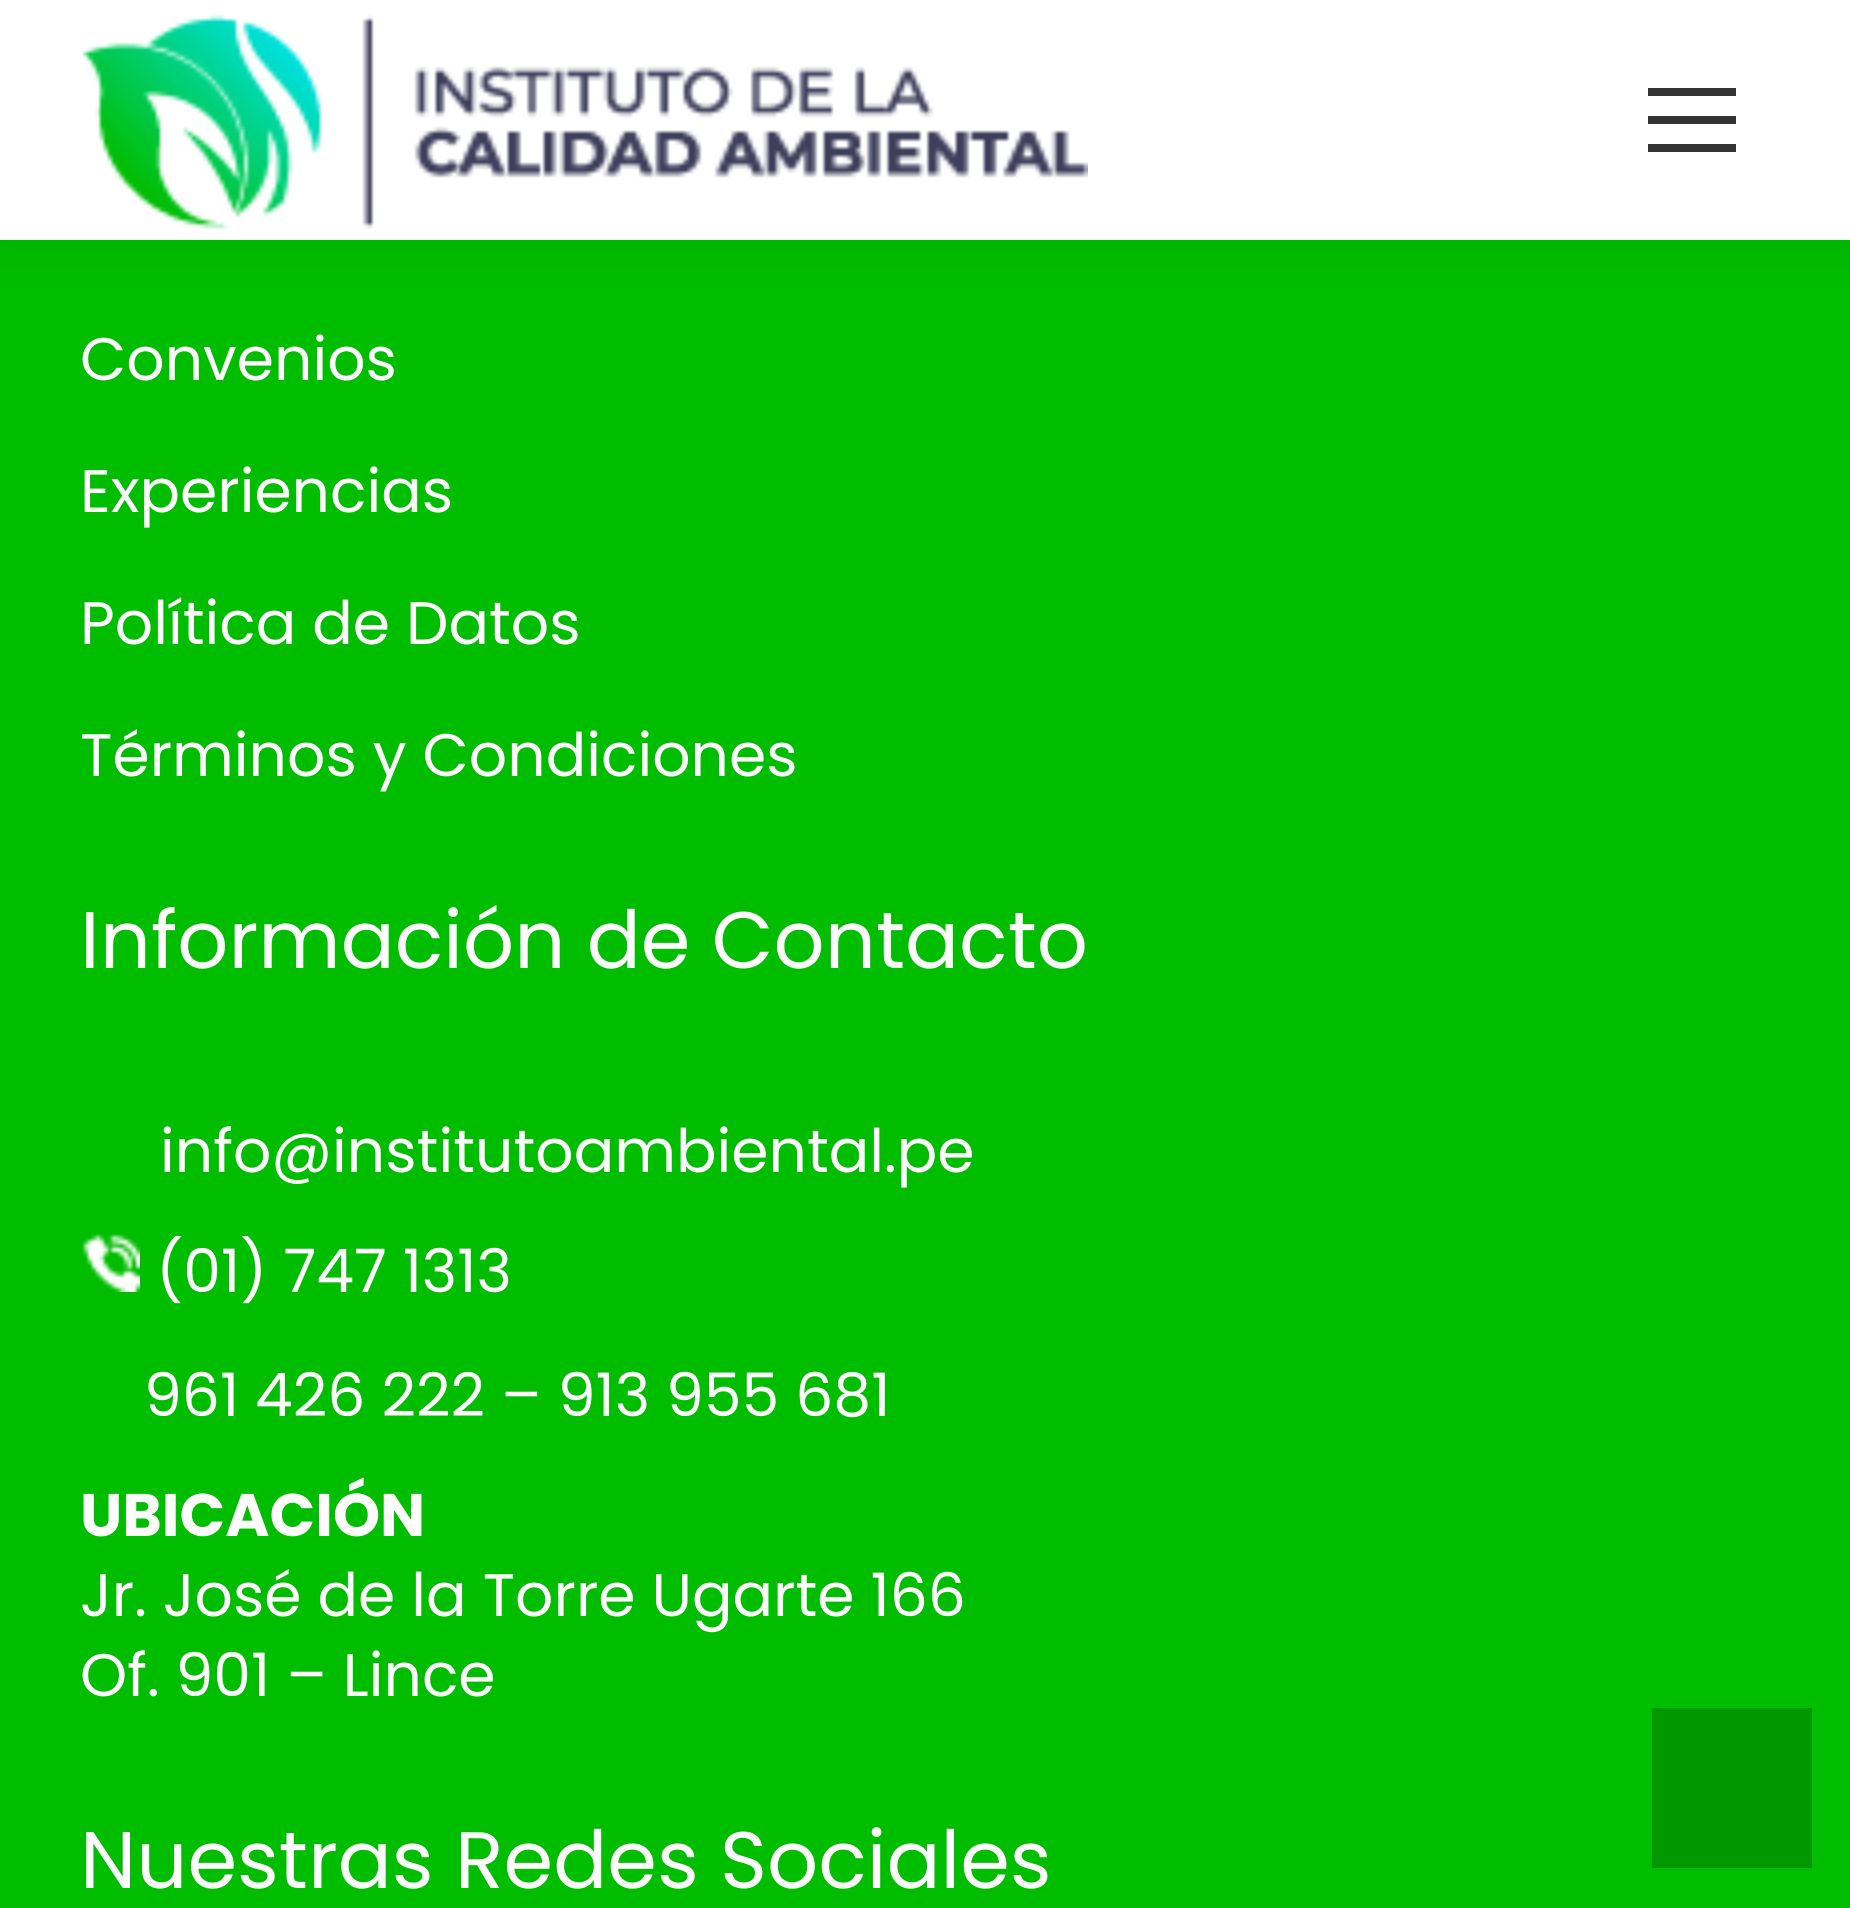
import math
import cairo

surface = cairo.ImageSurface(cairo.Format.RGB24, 1850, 1908)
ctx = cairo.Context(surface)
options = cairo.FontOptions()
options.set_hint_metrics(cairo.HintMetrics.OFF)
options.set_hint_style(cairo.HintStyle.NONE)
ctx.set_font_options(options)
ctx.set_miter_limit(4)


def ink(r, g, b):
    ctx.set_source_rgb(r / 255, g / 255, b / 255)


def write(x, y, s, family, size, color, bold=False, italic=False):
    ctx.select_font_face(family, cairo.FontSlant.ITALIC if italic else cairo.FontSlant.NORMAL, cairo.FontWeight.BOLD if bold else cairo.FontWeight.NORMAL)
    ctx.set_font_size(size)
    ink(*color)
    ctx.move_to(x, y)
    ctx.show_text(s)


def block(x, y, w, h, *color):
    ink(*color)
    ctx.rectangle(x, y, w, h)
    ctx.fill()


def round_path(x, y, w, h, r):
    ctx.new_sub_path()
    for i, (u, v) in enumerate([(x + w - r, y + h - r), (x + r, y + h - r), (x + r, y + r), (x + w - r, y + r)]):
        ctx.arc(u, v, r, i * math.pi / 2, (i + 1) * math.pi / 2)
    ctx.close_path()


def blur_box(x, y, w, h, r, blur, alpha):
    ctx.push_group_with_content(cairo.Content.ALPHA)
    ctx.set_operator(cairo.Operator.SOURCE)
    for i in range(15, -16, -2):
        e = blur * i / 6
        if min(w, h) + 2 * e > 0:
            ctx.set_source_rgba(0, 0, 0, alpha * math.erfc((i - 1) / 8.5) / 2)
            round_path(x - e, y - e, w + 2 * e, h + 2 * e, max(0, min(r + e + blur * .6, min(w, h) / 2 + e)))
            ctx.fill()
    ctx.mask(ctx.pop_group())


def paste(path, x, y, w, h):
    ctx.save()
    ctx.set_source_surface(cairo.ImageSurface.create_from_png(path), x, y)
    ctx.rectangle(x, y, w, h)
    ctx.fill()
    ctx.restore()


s1 = dict(family="Poppins", size=60, color=(255, 255, 255))
s2 = dict(family="Poppins", size=80, color=(255, 255, 255))
s3 = dict(family="Poppins", size=60, color=(255, 255, 255), bold=True)

ink(0, 189, 0)
ctx.paint()
ink(0, 0, 0)
blur_box(-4, -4, 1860, 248, 0, 30, 0.07)
block(0, 0, 1850, 240, 255, 255, 255)
paste("pic1.png", 82, 14, 1006, 216)
block(1648, 88, 88, 8, 51, 51, 51)
block(1648, 116, 88, 8, 51, 51, 51)
block(1648, 144, 88, 8, 51, 51, 51)
write(80, 380, "Convenios", **s1)
write(80, 512, "Experiencias", **s1)
write(80, 644, "Política de Datos", **s1)
write(80, 776, "Términos y Condiciones", **s1)
write(80, 968, "Información de Contacto", **s2)
write(160, 1172, "info@institutoambiental.pe", **s1)
paste("pic2.png", 82, 1234, 58, 58)
write(156, 1292, "(01) 747 1313", **s1)
write(144, 1416, "961 426 222 – 913 955 681", **s1)
write(80, 1536, "UBICACIÓN", **s3)
write(80, 1616, "Jr. José de la Torre Ugarte 166", **s1)
write(80, 1696, "Of. 901 – Lince", **s1)
write(80, 1888, "Nuestras Redes Sociales", **s2)
block(1652, 1708, 160, 160, 0, 151, 0)
surface.write_to_png("screenshot.png")
